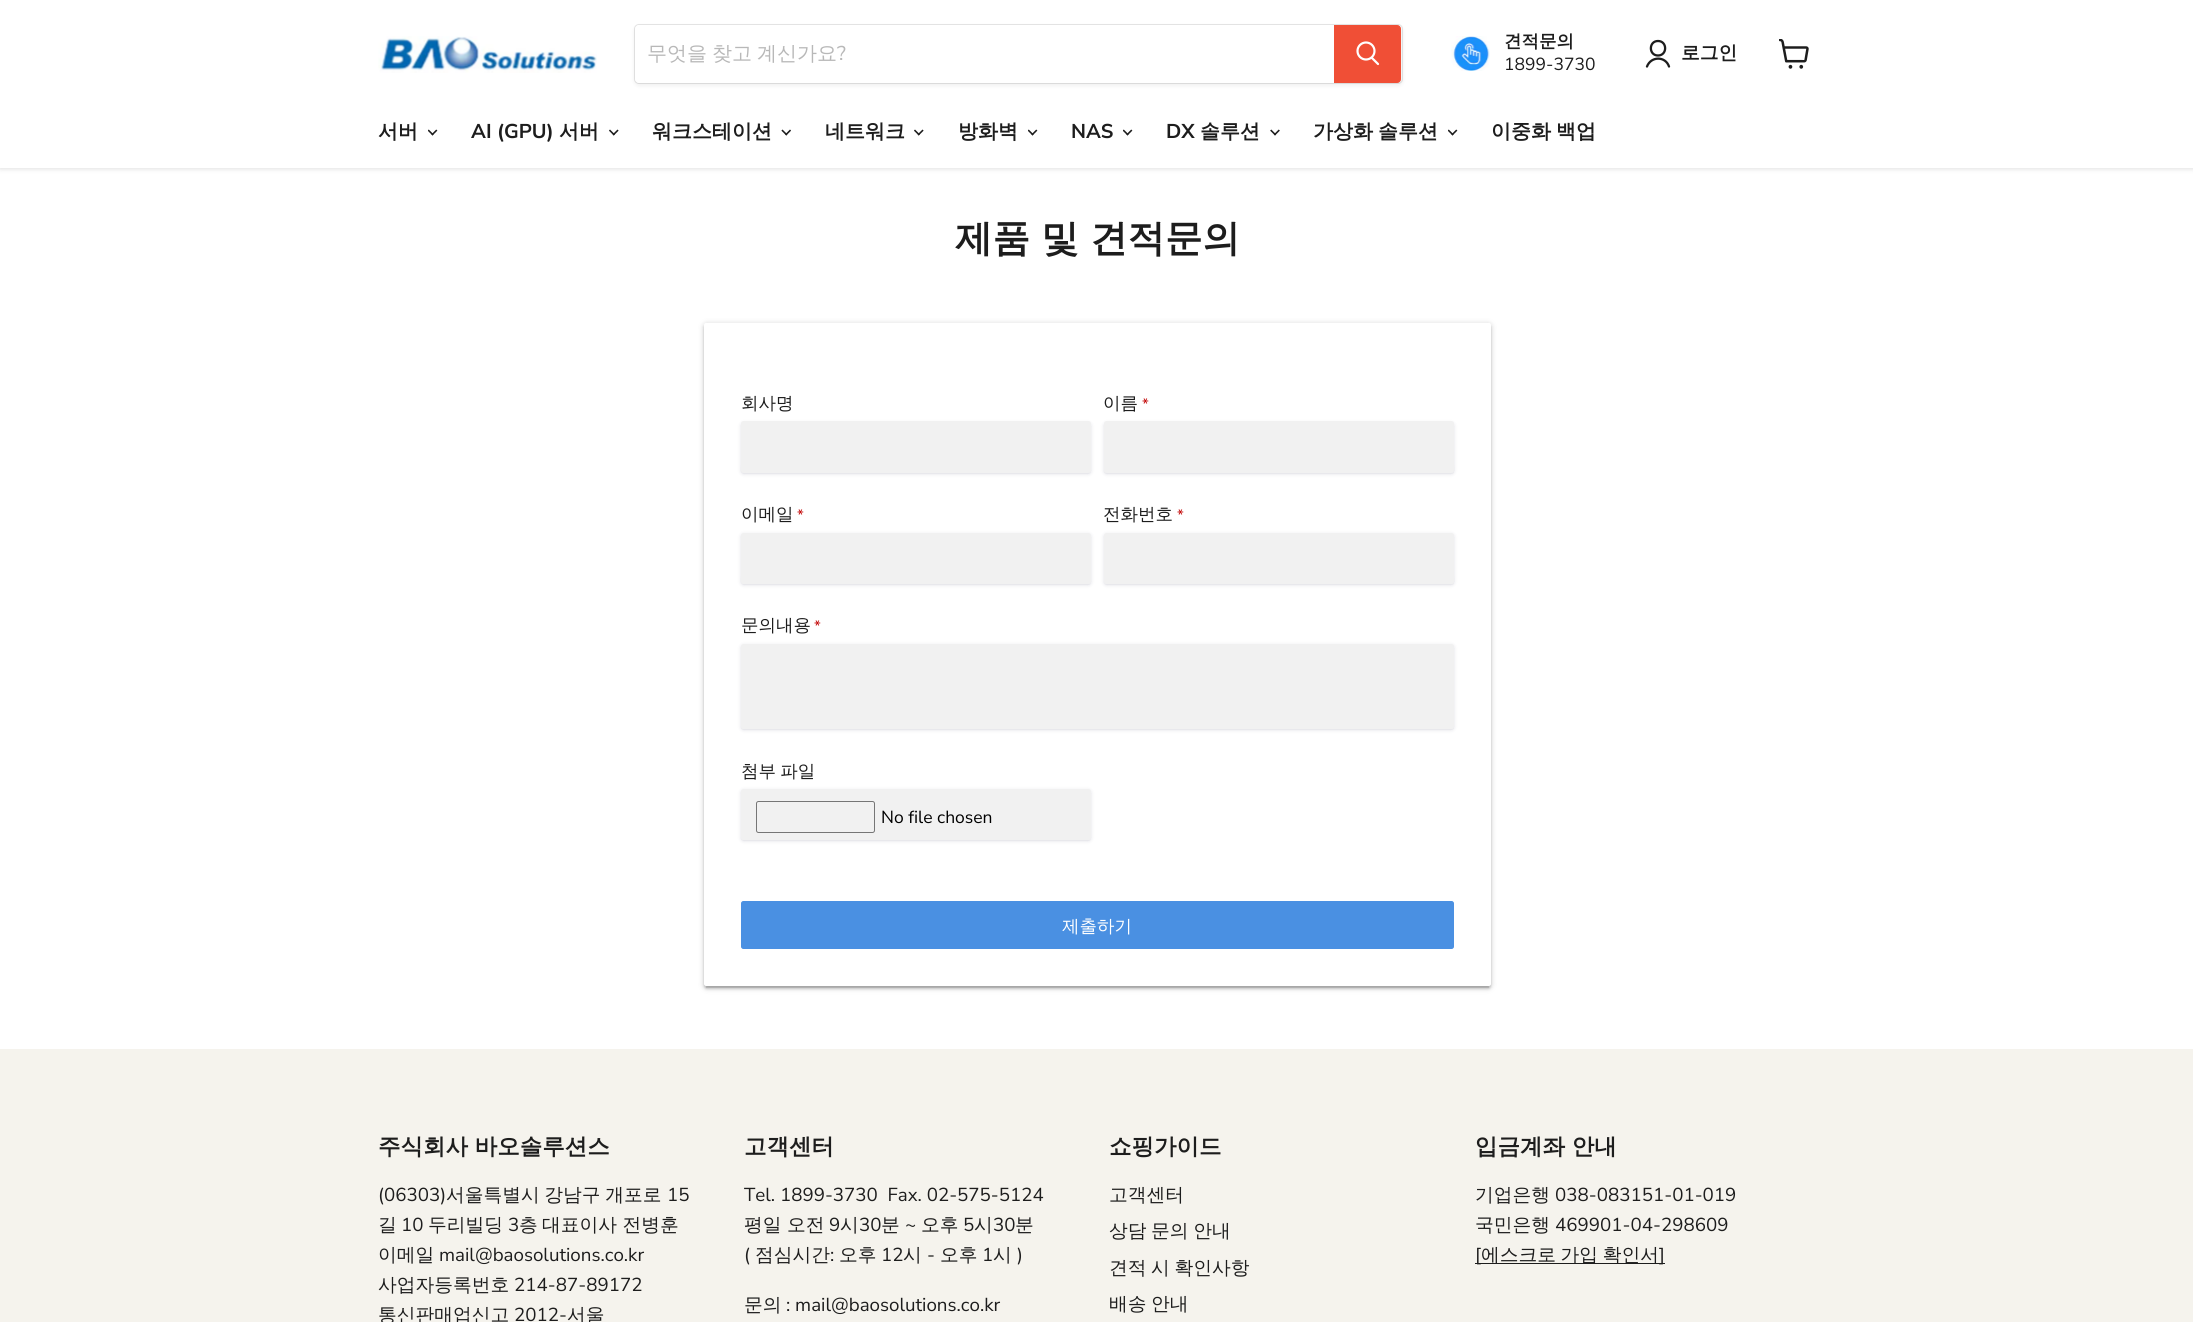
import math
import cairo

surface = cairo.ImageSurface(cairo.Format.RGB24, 2193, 1322)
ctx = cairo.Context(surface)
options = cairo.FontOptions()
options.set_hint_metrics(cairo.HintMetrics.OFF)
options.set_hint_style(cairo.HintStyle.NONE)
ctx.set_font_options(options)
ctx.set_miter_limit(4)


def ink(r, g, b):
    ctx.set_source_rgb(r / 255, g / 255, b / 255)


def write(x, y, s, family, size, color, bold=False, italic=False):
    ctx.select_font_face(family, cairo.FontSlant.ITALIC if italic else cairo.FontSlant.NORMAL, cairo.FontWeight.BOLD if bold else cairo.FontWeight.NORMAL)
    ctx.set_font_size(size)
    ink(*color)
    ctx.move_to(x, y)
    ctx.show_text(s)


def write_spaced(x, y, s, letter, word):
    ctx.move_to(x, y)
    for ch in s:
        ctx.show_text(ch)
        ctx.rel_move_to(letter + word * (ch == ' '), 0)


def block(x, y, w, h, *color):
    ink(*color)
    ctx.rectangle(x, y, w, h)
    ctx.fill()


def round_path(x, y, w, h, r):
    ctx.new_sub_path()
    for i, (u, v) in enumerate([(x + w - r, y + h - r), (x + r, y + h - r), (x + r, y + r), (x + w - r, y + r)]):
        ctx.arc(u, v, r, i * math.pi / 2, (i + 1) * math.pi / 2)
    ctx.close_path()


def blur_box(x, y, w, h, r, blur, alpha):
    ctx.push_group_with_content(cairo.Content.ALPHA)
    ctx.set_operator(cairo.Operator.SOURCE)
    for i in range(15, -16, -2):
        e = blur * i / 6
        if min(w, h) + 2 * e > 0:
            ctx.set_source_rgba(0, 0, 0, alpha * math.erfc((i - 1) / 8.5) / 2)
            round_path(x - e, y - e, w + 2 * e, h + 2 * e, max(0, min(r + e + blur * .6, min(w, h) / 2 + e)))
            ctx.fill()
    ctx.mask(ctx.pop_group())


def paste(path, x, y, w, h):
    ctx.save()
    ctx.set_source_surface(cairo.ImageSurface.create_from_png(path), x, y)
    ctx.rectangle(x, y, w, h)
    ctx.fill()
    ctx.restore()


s1 = dict(family="Nunito Sans", size=20, color=(184, 184, 184))
s2 = dict(family="WenQuanYi Zen Hei", size=17.5, color=(29, 29, 29), bold=True)
s3 = dict(family="Nunito Sans", size=17.5, color=(29, 29, 29))
s4 = dict(family="WenQuanYi Zen Hei", size=18.75, color=(29, 29, 29), bold=True)
s5 = dict(family="WenQuanYi Zen Hei", size=20, color=(29, 29, 29), bold=True)
s6 = dict(family="Nunito Sans", size=20, color=(29, 29, 29), bold=True)
s7 = dict(family="WenQuanYi Zen Hei", size=37.5, color=(29, 29, 29), bold=True)
s8 = dict(family="WenQuanYi Zen Hei Medium", size=17.5, color=(29, 29, 29))
s9 = dict(family="Nunito Sans", size=15, color=(193, 0, 0))
s10 = dict(family="Nunito Sans", size=17.5, color=(0, 0, 0))
s11 = dict(family="WenQuanYi Zen Hei Medium", size=17.5, color=(255, 255, 255))
s12 = dict(family="WenQuanYi Zen Hei", size=22.5, color=(29, 29, 29), bold=True)
s13 = dict(family="Nunito Sans", size=18.75, color=(29, 29, 29))
s14 = dict(family="WenQuanYi Zen Hei Medium", size=18.75, color=(29, 29, 29))

ink(255, 255, 255)
ctx.paint()
ink(128, 128, 128)
blur_box(0, 1, 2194, 168, 0, 2.5, 0.25)
block(0, 0, 2193, 168, 255, 255, 255)
paste("pic1.png", 378, 36, 219, 37)
ink(128, 128, 128)
blur_box(634, 26, 769, 60, 5, 2, 0.11)
round_path(634.5, 24.5, 768, 59, 4.5)
ctx.set_source_rgba(0.502, 0.502, 0.502, 0.2)
ctx.set_line_width(1)
ctx.stroke()
ink(255, 255, 255)
ctx.new_path()
ctx.move_to(639, 25)
ctx.line_to(1334, 25)
ctx.line_to(1334, 83)
ctx.line_to(639, 83)
ctx.curve_to(637, 83, 635, 81, 635, 79)
ctx.line_to(635, 29)
ctx.curve_to(635, 27, 637, 25, 639, 25)
ctx.close_path()
ctx.fill()
ctx.select_font_face("WenQuanYi Zen Hei Medium")
ctx.set_font_size(20)
ink(184, 184, 184)
write_spaced(647, 60, "무엇을 찾고 계신가요", 0, -1)
write(837, 60, "?", **s1)
ink(240, 79, 54)
ctx.new_path()
ctx.move_to(1334.5, 25.5)
ctx.line_to(1397, 25.5)
ctx.curve_to(1399, 25.5, 1400.5, 27, 1400.5, 29)
ctx.line_to(1400.5, 79)
ctx.curve_to(1400.5, 81, 1399, 82.5, 1397, 82.5)
ctx.line_to(1334.5, 82.5)
ctx.close_path()
ctx.fill_preserve()
ctx.stroke()
ctx.new_path()
ctx.move_to(1378, 64)
ctx.line_to(1372, 58)
ink(255, 255, 255)
ctx.set_line_width(2.2)
ctx.set_line_cap(cairo.LineCap.ROUND)
ctx.stroke()
ctx.arc(1366, 51, 8.5, 0, 2 * math.pi)
ctx.set_line_cap(cairo.LineCap.BUTT)
ctx.stroke()
paste("pic2.png", 1451, 36, 39, 35)
write(1504, 47, "견적문의", **s2)
write(1504, 70, "1899-3730", **s3)
ctx.new_path()
ctx.move_to(1658, 55.5)
ctx.curve_to(1667.5, 55.5, 1667.5, 41, 1658, 41)
ctx.curve_to(1648.5, 41, 1648.5, 55.5, 1658, 55.5)
ctx.close_path()
ctx.move_to(1669, 66.5)
ctx.curve_to(1665.5, 56, 1651, 56, 1647, 66.5)
ctx.set_line_width(2.3)
ctx.set_line_cap(cairo.LineCap.ROUND)
ctx.set_line_join(cairo.LineJoin.ROUND)
ctx.stroke()
write(1681, 59, "로그인", **s4)
paste("pic3.png", 1779, 39, 30, 30)
write(378, 138, "서버", **s5)
paste("pic4.png", 428, 129, 10, 7)
write(471, 138, "AI (GPU)", **s6)
write(559, 138, "서버", **s5)
paste("pic5.png", 609, 129, 10, 7)
write(652, 138, "워크스테이션", **s5)
paste("pic6.png", 781, 129, 10, 7)
write(825, 138, "네트워크", **s5)
paste("pic5.png", 914, 129, 10, 7)
write(958, 138, "방화벽", **s5)
paste("pic4.png", 1028, 129, 10, 7)
write(1071, 138, "NAS", **s6)
paste("pic4.png", 1123, 129, 10, 7)
write(1166, 138, "DX", **s6)
write(1200, 138, "솔루션", **s5)
paste("pic7.png", 1270, 129, 10, 7)
write_spaced(1313, 138, "가상화 솔루션", 0, -1)
paste("pic4.png", 1448, 129, 10, 7)
write_spaced(1491, 138, "이중화 백업", 0, -1)
write(955, 251, "제품 및 견적문의", **s7)
ctx.save()
ctx.set_fill_rule(cairo.FillRule.EVEN_ODD)
ctx.new_path()
ctx.move_to(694, 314)
ctx.line_to(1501, 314)
ctx.line_to(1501, 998)
ctx.line_to(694, 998)
ctx.close_path()
ctx.move_to(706.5, 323)
ctx.line_to(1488.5, 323)
ctx.curve_to(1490, 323, 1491, 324, 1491, 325.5)
ctx.line_to(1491, 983.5)
ctx.curve_to(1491, 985, 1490, 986, 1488.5, 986)
ctx.line_to(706.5, 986)
ctx.curve_to(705, 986, 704, 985, 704, 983.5)
ctx.line_to(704, 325.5)
ctx.curve_to(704, 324, 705, 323, 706.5, 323)
ctx.close_path()
ctx.clip()
ink(0, 0, 0)
blur_box(704, 324, 787, 664, 2.5, 3, 0.2)
ctx.restore()
ctx.save()
ctx.rectangle(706, 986, 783, 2)
ctx.clip()
ink(0, 0, 0)
blur_box(706, 329, 783, 659, 0, 0.5, 0.12)
ctx.restore()
ctx.save()
ctx.set_fill_rule(cairo.FillRule.EVEN_ODD)
ctx.new_path()
ctx.move_to(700, 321)
ctx.line_to(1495, 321)
ctx.line_to(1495, 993)
ctx.line_to(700, 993)
ctx.close_path()
ctx.move_to(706.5, 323)
ctx.line_to(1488.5, 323)
ctx.curve_to(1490, 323, 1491, 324, 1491, 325.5)
ctx.line_to(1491, 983.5)
ctx.curve_to(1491, 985, 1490, 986, 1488.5, 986)
ctx.line_to(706.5, 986)
ctx.curve_to(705, 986, 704, 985, 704, 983.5)
ctx.line_to(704, 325.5)
ctx.curve_to(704, 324, 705, 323, 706.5, 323)
ctx.close_path()
ctx.clip()
ink(0, 0, 0)
blur_box(704, 325, 787, 664, 2.5, 1, 0.14)
ctx.restore()
write(741, 409, "회사명", **s8)
ink(250, 250, 250)
ctx.new_path()
ctx.move_to(741, 424)
ctx.line_to(741, 464)
ctx.curve_to(741, 465, 739, 474, 744, 474)
ctx.line_to(1088, 474)
ctx.curve_to(1090, 474, 1091, 473, 1091, 471)
ctx.curve_to(1091, 472, 1090, 472, 1089, 472)
ctx.line_to(744, 472)
ctx.curve_to(742, 472, 741, 471, 741, 470)
ctx.close_path()
ctx.fill()
ink(50, 50, 93)
blur_box(741, 423, 350, 51, 2.5, 2, 0.15)
ink(241, 241, 241)
round_path(741, 421, 350, 52, 2.5)
ctx.fill()
write(1103, 409, "이름", **s8)
write(1142, 409, "*", **s9)
ink(250, 250, 250)
ctx.new_path()
ctx.move_to(1104, 471)
ctx.curve_to(1104, 473, 1105, 474, 1106, 474)
ctx.line_to(1452, 474)
ctx.curve_to(1456, 474, 1454, 465, 1454, 464)
ctx.line_to(1454, 424)
ctx.line_to(1454, 470)
ctx.curve_to(1454, 471, 1453, 472, 1451, 472)
ctx.line_to(1106, 472)
ctx.curve_to(1105, 472, 1104, 472, 1104, 471)
ctx.close_path()
ctx.fill()
ink(50, 50, 93)
blur_box(1104, 423, 350, 51, 2.5, 2, 0.15)
ink(241, 241, 241)
round_path(1104, 421, 350, 52, 2.5)
ctx.fill()
write(741, 520, "이메일", **s8)
write(797, 520, "*", **s9)
ink(250, 250, 250)
ctx.new_path()
ctx.move_to(741, 535)
ctx.line_to(741, 575)
ctx.curve_to(741, 576, 739, 585, 744, 585)
ctx.line_to(1089, 585)
ctx.curve_to(1090, 585, 1091, 584, 1091, 582)
ctx.curve_to(1091, 583, 1090, 584, 1089, 584)
ctx.line_to(744, 584)
ctx.curve_to(742, 584, 741, 583, 741, 581)
ctx.close_path()
ctx.fill()
ink(50, 50, 93)
blur_box(741, 534, 350, 51, 2.5, 2, 0.15)
ink(241, 241, 241)
round_path(741, 533, 350, 51, 2.5)
ctx.fill()
write(1103, 520, "전화번호", **s8)
write(1177, 520, "*", **s9)
ink(250, 250, 250)
ctx.new_path()
ctx.move_to(1104, 582)
ctx.curve_to(1104, 584, 1105, 585, 1106, 585)
ctx.line_to(1452, 585)
ctx.curve_to(1456, 585, 1454, 576, 1454, 575)
ctx.line_to(1454, 535)
ctx.line_to(1454, 581)
ctx.curve_to(1454, 583, 1453, 584, 1451, 584)
ctx.line_to(1106, 584)
ctx.curve_to(1105, 584, 1104, 583, 1104, 582)
ctx.close_path()
ctx.fill()
ink(50, 50, 93)
blur_box(1104, 534, 350, 51, 2.5, 2, 0.15)
ink(241, 241, 241)
round_path(1104, 533, 350, 51, 2.5)
ctx.fill()
write(741, 631, "문의내용", **s8)
write(814, 631, "*", **s9)
ink(250, 250, 250)
ctx.new_path()
ctx.move_to(741, 646)
ctx.line_to(741, 728)
ctx.curve_to(741, 729, 742, 730, 744, 730)
ctx.line_to(1452, 730)
ctx.curve_to(1453, 730, 1454, 729, 1454, 728)
ctx.line_to(1454, 646)
ctx.line_to(1454, 726)
ctx.curve_to(1454, 728, 1453, 729, 1451, 729)
ctx.line_to(744, 729)
ctx.curve_to(742, 729, 741, 728, 741, 726)
ctx.close_path()
ctx.fill()
ink(50, 50, 93)
blur_box(741, 645, 713, 85, 2.5, 2, 0.15)
ink(241, 241, 241)
round_path(741, 644, 713, 85, 2.5)
ctx.fill()
ctx.select_font_face("WenQuanYi Zen Hei Medium")
ctx.set_font_size(17.5)
ink(29, 29, 29)
write_spaced(741, 777, "첨부 파일", 0, -1)
ink(250, 250, 250)
ctx.new_path()
ctx.move_to(741, 791)
ctx.line_to(741, 838)
ctx.curve_to(741, 840, 742, 841, 744, 841)
ctx.line_to(1088, 841)
ctx.curve_to(1090, 841, 1091, 840, 1091, 839)
ctx.curve_to(1091, 839, 1090, 840, 1089, 840)
ctx.line_to(744, 840)
ctx.curve_to(742, 840, 741, 839, 741, 838)
ctx.close_path()
ctx.fill()
ink(50, 50, 93)
blur_box(741, 790, 350, 51, 2.5, 2, 0.15)
ink(241, 241, 241)
round_path(741, 789, 350, 51, 2.5)
ctx.fill()
round_path(756.5, 801.5, 118, 31, 2)
ink(118, 118, 118)
ctx.set_line_width(1)
ctx.set_line_cap(cairo.LineCap.BUTT)
ctx.set_line_join(cairo.LineJoin.MITER)
ctx.stroke()
write(881, 823, "No file chosen", **s10)
ink(74, 144, 226)
round_path(741.5, 901.5, 712, 47, 2)
ctx.fill_preserve()
ctx.stroke()
write(1062, 932, "제출하기", **s11)
block(0, 1049, 2193, 273, 245, 243, 237)
write(378, 1154, "주식회사 바오솔루션스", **s12)
write(378, 1201, "(06303)", **s13)
ctx.select_font_face("WenQuanYi Zen Hei Medium")
write_spaced(446, 1201, "서울특별시 강남구 개포로", 0, -1)
write(667, 1201, "15", **s13)
write(378, 1231, "길", **s14)
write(401, 1231, "10", **s13)
write(428, 1231, "두리빌딩", **s14)
write(508, 1231, "3", **s13)
write(519, 1231, "층", **s14)
write(542, 1231, "대표이사 전병훈", **s14)
write(378, 1261, "이메일", **s14)
write(439, 1261, "mail@baosolutions.co.kr", **s13)
write(378, 1291, "사업자등록번호", **s14)
write(514, 1291, "214-87-89172", **s13)
write(378, 1321, "통신판매업신고", **s14)
write(514, 1321, "2012-", **s13)
write(567, 1321, "서울", **s14)
write(744, 1154, "고객센터", **s12)
write(744, 1201, "Tel. 1899-3730  Fax. 02-575-5124", **s13)
write(744, 1231, "평일 오전", **s14)
write(829, 1231, "9", **s13)
write(840, 1231, "시", **s14)
write(859, 1231, "30", **s13)
write(881, 1231, "분", **s14)
write(905, 1231, "~", **s13)
write(921, 1231, "오후", **s14)
write(963, 1231, "5", **s13)
write(974, 1231, "시", **s14)
write(993, 1231, "30", **s13)
write(1015, 1231, "분", **s14)
write(744, 1261, "(", **s13)
write(755, 1261, "점심시간", **s14)
write(830, 1261, ":", **s13)
write(839, 1261, "오후", **s14)
write(881, 1261, "12", **s13)
write(903, 1261, "시", **s14)
write(927, 1261, "-", **s13)
write(940, 1261, "오후", **s14)
write(982, 1261, "1", **s13)
write(993, 1261, "시", **s14)
write(1017, 1261, ")", **s13)
write(744, 1311, "문의", **s14)
write(786, 1311, ": mail@baosolutions.co.kr", **s13)
write(1109, 1154, "쇼핑가이드", **s12)
write(1109, 1201, "고객센터", **s14)
write_spaced(1109, 1237, "상담 문의 안내", 0, -1)
write_spaced(1109, 1274, "견적 시 확인사항", 0, -1)
write_spaced(1109, 1310, "배송 안내", 0, -1)
write(1475, 1154, "입금계좌 안내", **s12)
write(1475, 1201, "기업은행", **s14)
write(1555, 1201, "038-083151-01-019", **s13)
write(1475, 1231, "국민은행", **s14)
write(1555, 1231, "469901-04-298609", **s13)
block(1475, 1263, 190, 1, 29, 29, 29)
write(1475, 1261, "[", **s13)
ctx.select_font_face("WenQuanYi Zen Hei Medium")
write_spaced(1481, 1261, "에스크로 가입 확인서", 0, -1)
write(1659, 1261, "]", **s13)
surface.write_to_png("screenshot.png")
